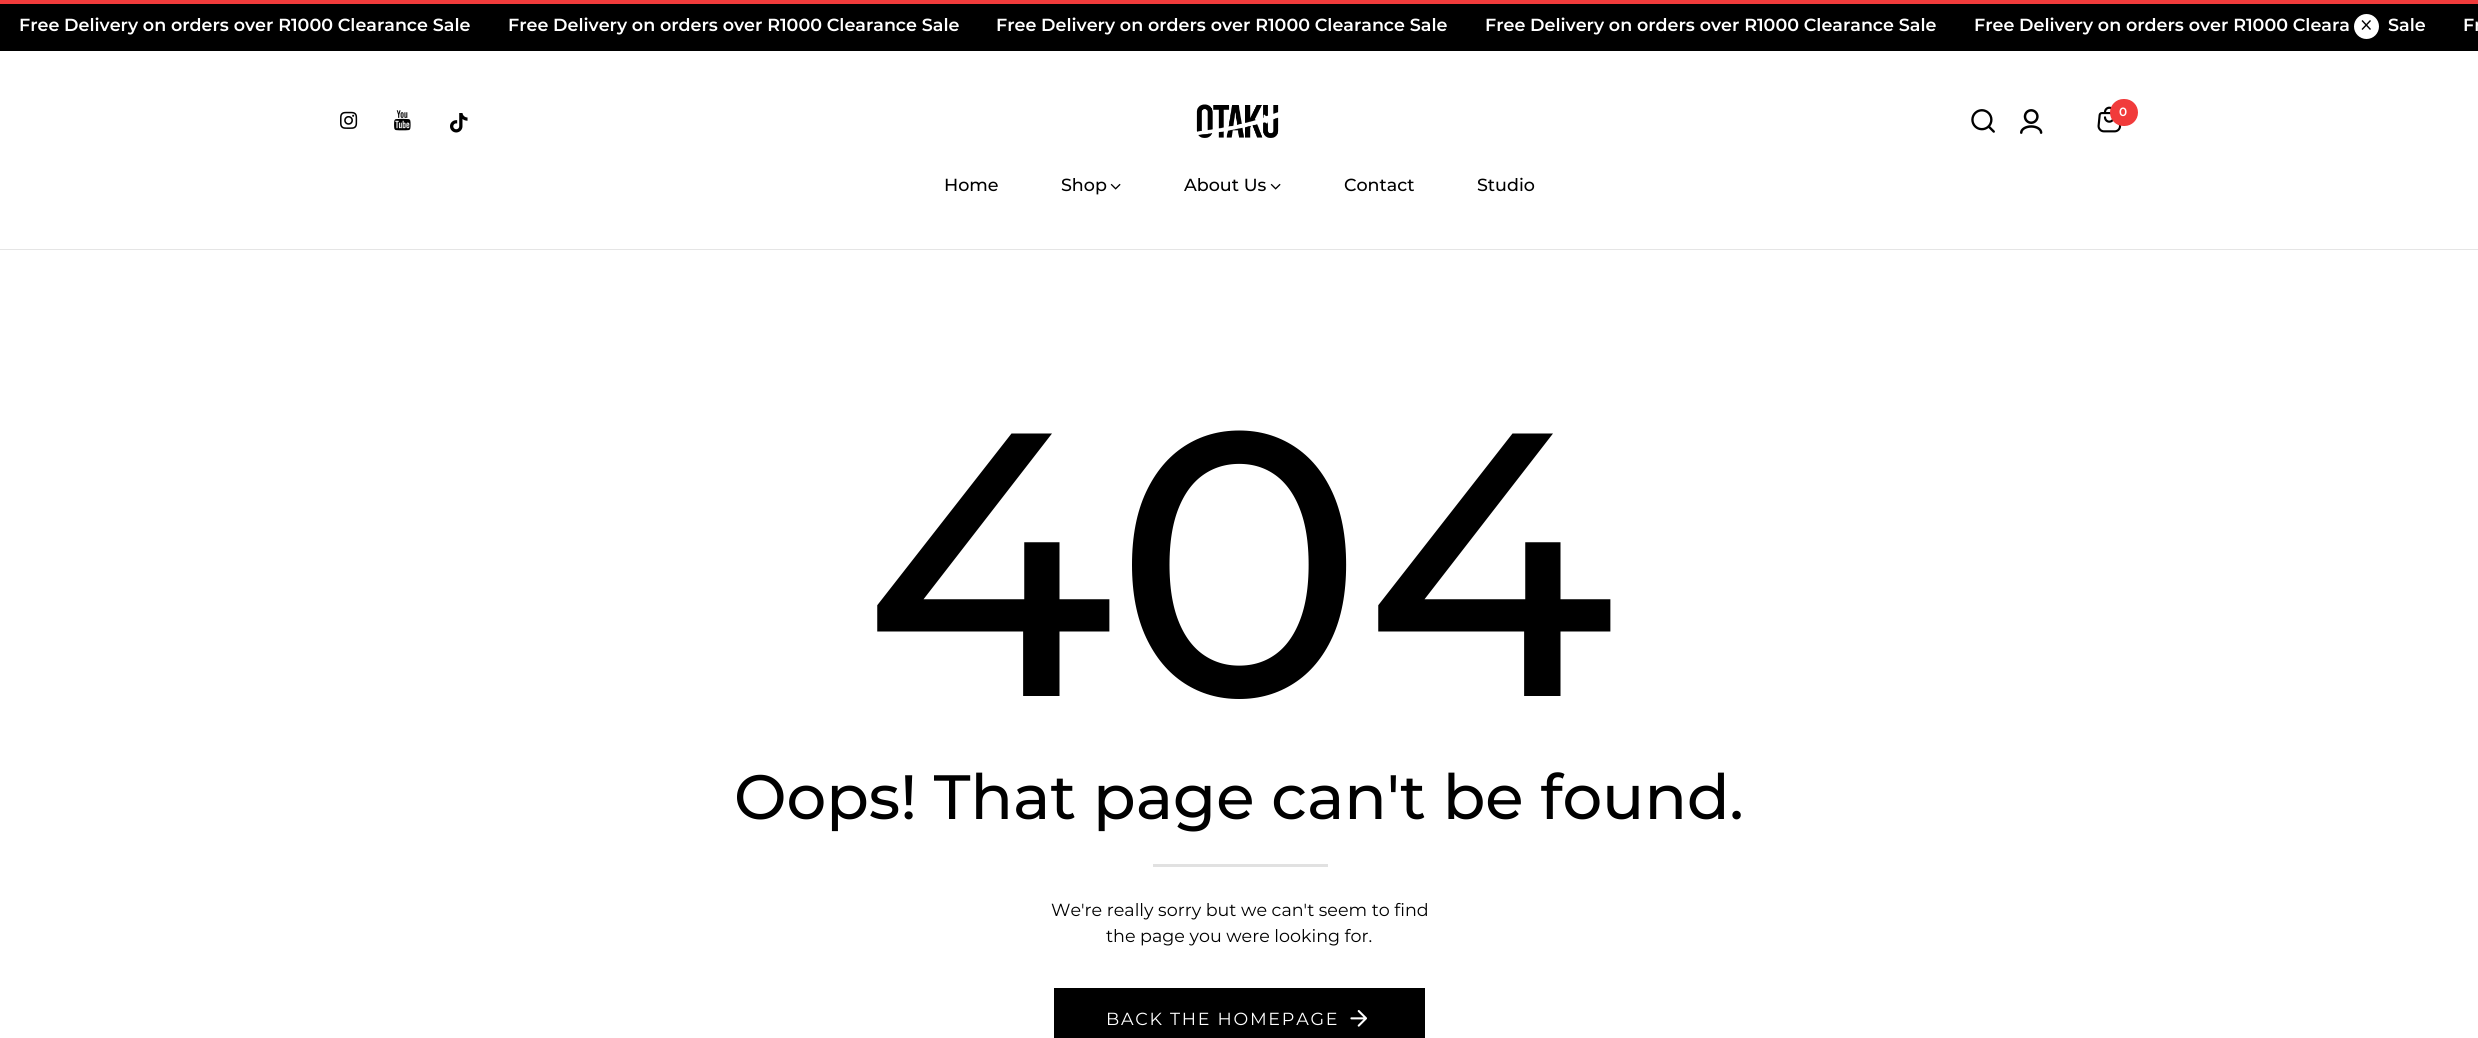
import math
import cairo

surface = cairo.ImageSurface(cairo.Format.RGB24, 2478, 1038)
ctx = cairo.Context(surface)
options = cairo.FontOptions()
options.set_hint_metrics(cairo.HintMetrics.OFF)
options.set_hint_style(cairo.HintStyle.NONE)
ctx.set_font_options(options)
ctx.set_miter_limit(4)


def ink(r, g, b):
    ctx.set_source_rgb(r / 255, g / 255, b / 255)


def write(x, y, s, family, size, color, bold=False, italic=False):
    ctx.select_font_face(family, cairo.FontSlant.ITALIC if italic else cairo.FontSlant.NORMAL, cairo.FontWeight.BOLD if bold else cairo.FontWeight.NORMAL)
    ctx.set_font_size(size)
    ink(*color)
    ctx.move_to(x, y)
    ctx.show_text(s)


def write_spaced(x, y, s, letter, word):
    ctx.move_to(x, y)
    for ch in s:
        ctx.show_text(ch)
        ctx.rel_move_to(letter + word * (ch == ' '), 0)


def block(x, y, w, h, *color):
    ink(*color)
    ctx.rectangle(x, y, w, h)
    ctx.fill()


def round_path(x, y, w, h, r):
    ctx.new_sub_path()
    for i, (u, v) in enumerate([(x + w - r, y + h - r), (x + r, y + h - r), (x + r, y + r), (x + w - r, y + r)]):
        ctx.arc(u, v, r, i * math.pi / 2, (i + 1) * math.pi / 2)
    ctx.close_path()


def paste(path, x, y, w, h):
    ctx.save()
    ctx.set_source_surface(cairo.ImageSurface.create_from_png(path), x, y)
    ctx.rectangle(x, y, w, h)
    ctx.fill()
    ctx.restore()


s1 = dict(family="Montserrat SemiBold", size=17.5, color=(255, 255, 255))
s2 = dict(family="Montserrat SemiBold", size=12, color=(255, 255, 255))
s3 = dict(family="Montserrat Medium", size=17.5, color=(0, 0, 0))
s4 = dict(family="Montserrat Medium", size=375, color=(0, 0, 0))
s5 = dict(family="Montserrat Medium", size=62.5, color=(0, 0, 0))
s6 = dict(family="Montserrat", size=17.5, color=(0, 0, 0))

ink(255, 255, 255)
ctx.paint()
block(0, 0, 2478, 4, 241, 59, 59)
block(0, 4, 2478, 47, 0, 0, 0)
ink(255, 255, 255)
ctx.arc(2366.5, 26.5, 12.5, 0, 2 * math.pi)
ctx.fill()
ink(0, 0, 0)
ctx.new_path()
ctx.move_to(2361.5, 29)
ctx.line_to(2370, 20)
ctx.line_to(2371, 21)
ctx.line_to(2362.5, 30)
ctx.close_path()
ctx.fill()
ctx.new_path()
ctx.move_to(2362.5, 20)
ctx.line_to(2371, 29)
ctx.line_to(2370, 30)
ctx.line_to(2361.5, 21)
ctx.close_path()
ctx.fill()
write(19, 31, "Free Delivery on orders over R1000 Clearance Sale", **s1)
write(508, 31, "Free Delivery on orders over R1000 Clearance Sale", **s1)
write(996, 31, "Free Delivery on orders over R1000 Clearance Sale", **s1)
write(1485, 31, "Free Delivery on orders over R1000 Clearance Sale", **s1)
write(1974, 31, "Free Delivery on orders over R1000 Cleara", **s1)
write(2388, 31, "Sale", **s1)
write(2463, 31, "Fr", **s1)
block(0, 249, 2478, 1, 229, 229, 229)
paste("pic1.png", 340, 111, 18, 18)
paste("pic2.png", 394, 110, 17, 21)
paste("pic3.png", 450, 113, 18, 20)
paste("pic4.png", 1196, 104, 83, 34)
paste("pic5.png", 1971, 109, 24, 24)
paste("pic6.png", 2020, 109, 23, 25)
paste("pic7.png", 2097, 106, 25, 27)
ink(241, 59, 59)
round_path(2110, 99, 28, 27, 13.5)
ctx.fill()
write(2119, 116, "0", **s2)
write(944, 191, "Home", **s3)
write(1061, 191, "Shop", **s3)
paste("pic8.png", 1110, 183, 11, 7)
write(1184, 191, "About Us", **s3)
paste("pic8.png", 1270, 183, 11, 7)
write(1344, 191, "Contact", **s3)
write(1477, 191, "Studio", **s3)
write(863, 696, "404", **s4)
write(734, 819, "Oops! That page can't be found.", **s5)
block(1153, 864, 175, 3, 225, 225, 225)
write(1051, 916, "We're really sorry but we can't seem to find", **s6)
write(1106, 942, "the page you were looking for.", **s6)
block(1054, 988, 371, 50, 0, 0, 0)
ink(255, 255, 255)
write_spaced(1106, 1025, "BACK THE HOMEPAGE", 1.75, 0)
paste("pic9.png", 1350, 1010, 17, 17)
surface.write_to_png("screenshot.png")
